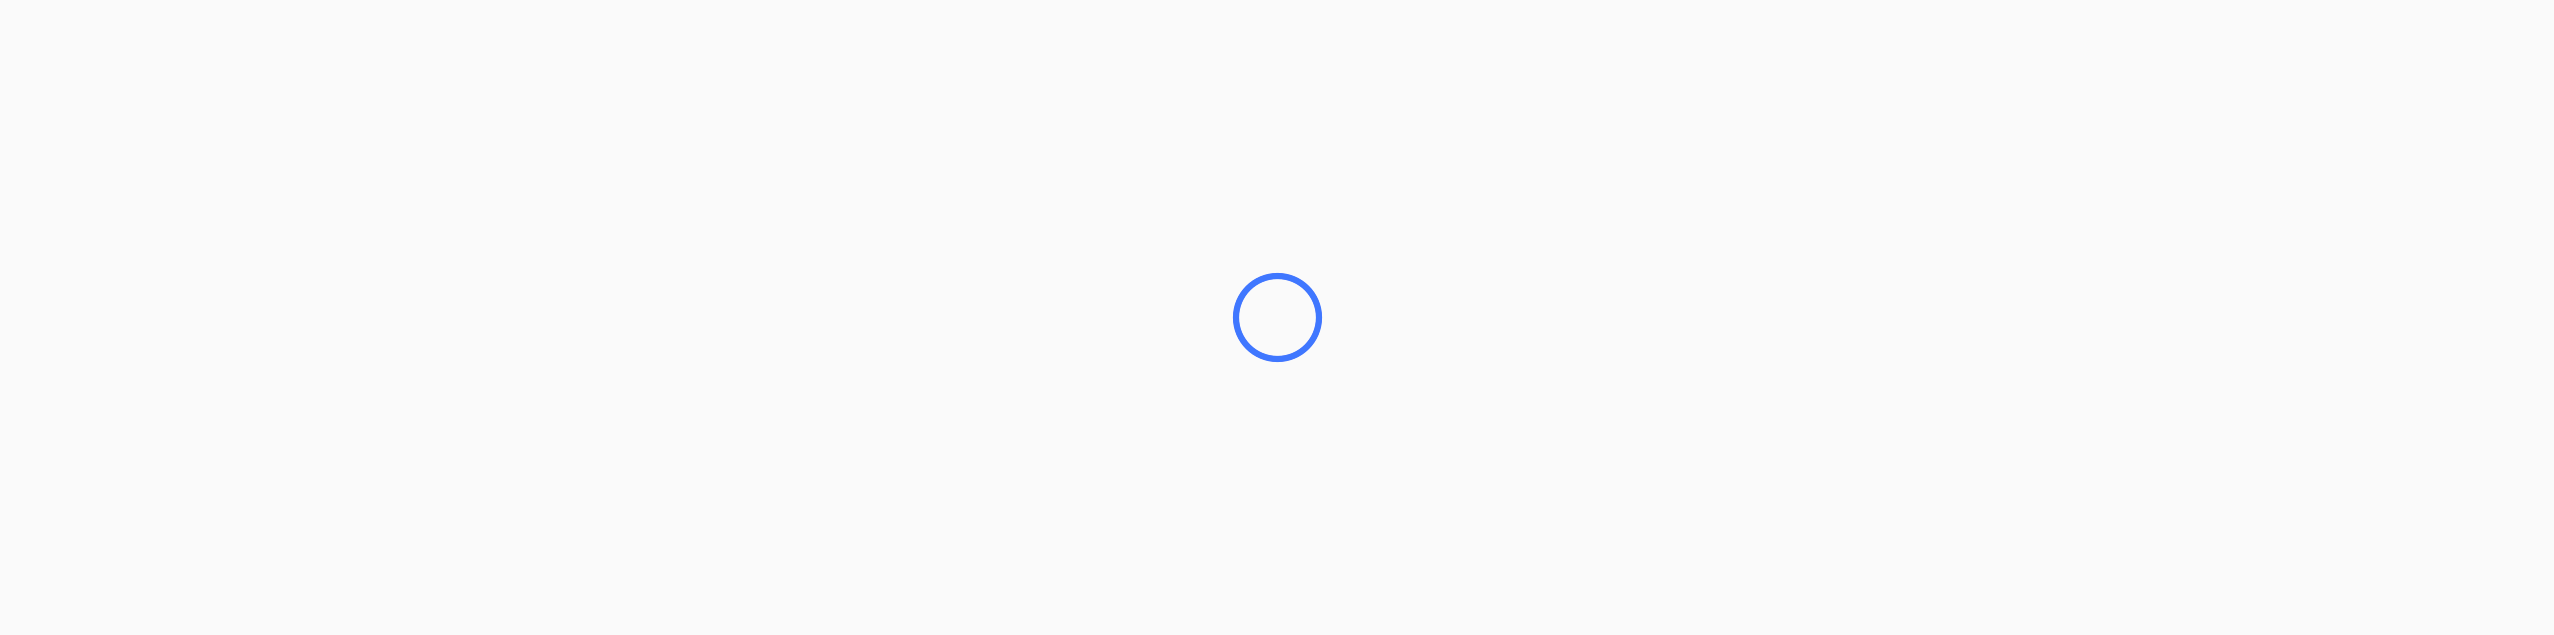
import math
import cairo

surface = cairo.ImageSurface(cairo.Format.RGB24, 2554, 635)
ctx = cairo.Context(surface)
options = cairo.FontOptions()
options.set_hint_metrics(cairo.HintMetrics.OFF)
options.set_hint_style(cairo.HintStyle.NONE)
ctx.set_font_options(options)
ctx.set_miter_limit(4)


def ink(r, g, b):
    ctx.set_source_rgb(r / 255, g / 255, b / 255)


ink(250, 250, 250)
ctx.paint()
ctx.arc(1277.5, 317.5, 41.5, 0, 2 * math.pi)
ink(195, 102, 220)
ctx.set_line_width(4.1)
ctx.stroke()
ctx.arc(1277.5, 317.5, 41.5, 0, 2 * math.pi)
ink(166, 107, 234)
ctx.set_line_width(4.8)
ctx.stroke()
ctx.arc(1277.5, 317.5, 41.5, 0, 2 * math.pi)
ink(127, 113, 246)
ctx.set_line_width(5.5)
ctx.stroke()
ctx.arc(1277.5, 317.5, 41.5, 0, 2 * math.pi)
ink(63, 119, 255)
ctx.set_line_width(6.2)
ctx.stroke()
surface.write_to_png("screenshot.png")
